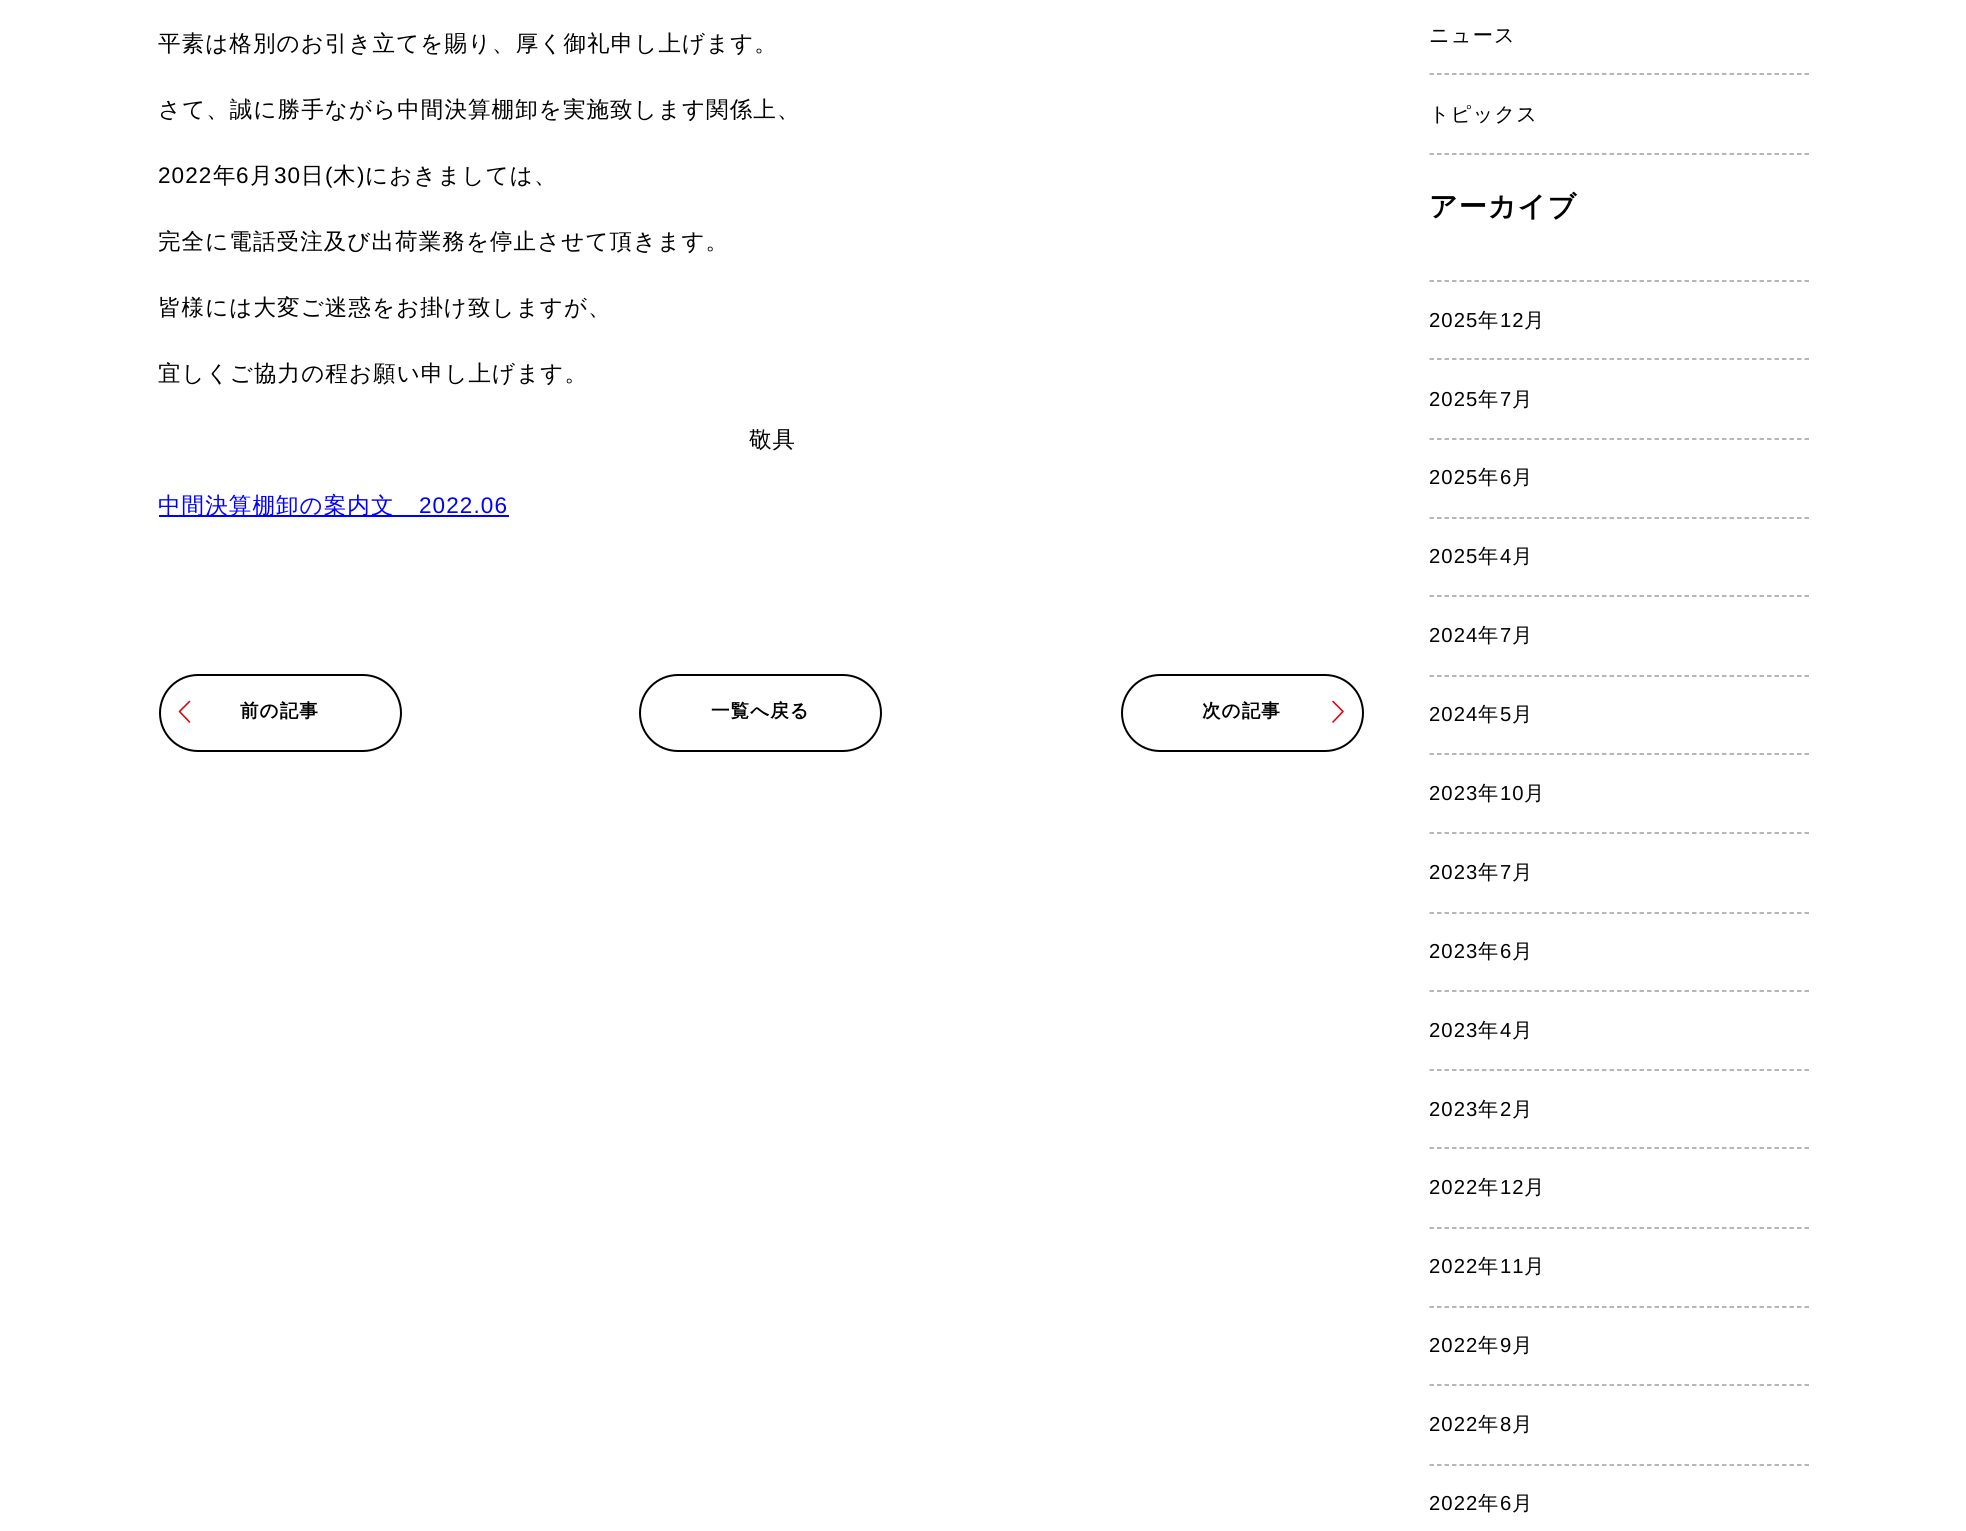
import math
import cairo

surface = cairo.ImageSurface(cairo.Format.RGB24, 1966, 1531)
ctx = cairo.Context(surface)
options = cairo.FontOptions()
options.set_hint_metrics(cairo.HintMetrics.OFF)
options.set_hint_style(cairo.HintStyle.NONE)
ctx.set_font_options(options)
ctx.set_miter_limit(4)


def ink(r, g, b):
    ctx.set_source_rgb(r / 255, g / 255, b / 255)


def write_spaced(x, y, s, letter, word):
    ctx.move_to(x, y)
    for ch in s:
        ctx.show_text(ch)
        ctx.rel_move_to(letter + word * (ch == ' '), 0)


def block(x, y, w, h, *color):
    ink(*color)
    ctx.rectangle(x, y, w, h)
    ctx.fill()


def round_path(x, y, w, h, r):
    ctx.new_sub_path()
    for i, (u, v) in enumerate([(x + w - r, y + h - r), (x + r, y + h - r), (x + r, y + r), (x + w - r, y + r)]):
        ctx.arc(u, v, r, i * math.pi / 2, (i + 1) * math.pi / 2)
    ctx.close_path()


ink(255, 255, 255)
ctx.paint()
ctx.select_font_face("WenQuanYi Zen Hei Medium")
ctx.set_font_size(22.5)
ink(0, 0, 0)
write_spaced(158, 51, "平素は格別のお引き立てを賜り、厚く御礼申し上げます。", 1.1, 0)
write_spaced(158, 117, "さて、誠に勝手ながら中間決算棚卸を実施致します関係上、", 1.1, 0)
ctx.select_font_face("Liberation Sans")
write_spaced(158, 183, "2022", 1.1, 0)
ctx.select_font_face("WenQuanYi Zen Hei Medium")
write_spaced(213, 183, "年", 1.1, 0)
ctx.select_font_face("Liberation Sans")
write_spaced(236, 183, "6", 1.1, 0)
ctx.select_font_face("WenQuanYi Zen Hei Medium")
write_spaced(250, 183, "月", 1.1, 0)
ctx.select_font_face("Liberation Sans")
write_spaced(274, 183, "30", 1.1, 0)
ctx.select_font_face("WenQuanYi Zen Hei Medium")
write_spaced(301, 183, "日", 1.1, 0)
ctx.select_font_face("Liberation Sans")
write_spaced(325, 183, "(", 1.1, 0)
ctx.select_font_face("WenQuanYi Zen Hei Medium")
write_spaced(333, 183, "木", 1.1, 0)
ctx.select_font_face("Liberation Sans")
write_spaced(357, 183, ")", 1.1, 0)
ctx.select_font_face("WenQuanYi Zen Hei Medium")
write_spaced(365, 183, "におきましては、", 1.1, 0)
write_spaced(158, 249, "完全に電話受注及び出荷業務を停止させて頂きます。", 1.1, 0)
write_spaced(158, 315, "皆様には大変ご迷惑をお掛け致しますが、", 1.1, 0)
write_spaced(158, 381, "宜しくご協力の程お願い申し上げます。", 1.1, 0)
write_spaced(749, 447, "敬具", 1.1, 0)
block(159, 515, 350, 2, 0, 0, 255)
write_spaced(158, 513, "中間決算棚卸の案内文", 1.1, 0)
ctx.select_font_face("Liberation Sans")
write_spaced(419, 513, "2022.06", 1.1, 0)
round_path(160, 675, 241, 76, 38)
ink(0, 0, 0)
ctx.stroke()
ctx.new_path()
ctx.move_to(189.5, 722)
ctx.line_to(179.5, 711.5)
ctx.line_to(189.5, 701.5)
ink(230, 0, 18)
ctx.set_line_width(1.6)
ctx.set_line_cap(cairo.LineCap.ROUND)
ctx.set_line_join(cairo.LineJoin.ROUND)
ctx.stroke()
ctx.select_font_face("WenQuanYi Zen Hei", cairo.FontSlant.NORMAL, cairo.FontWeight.BOLD)
ctx.set_font_size(18.5)
ink(0, 0, 0)
write_spaced(240, 717, "前の記事", 1.1, 0)
round_path(640, 675, 241, 76, 38)
ctx.set_line_width(2)
ctx.set_line_cap(cairo.LineCap.BUTT)
ctx.set_line_join(cairo.LineJoin.MITER)
ctx.stroke()
write_spaced(711, 717, "一覧へ戻る", 1.1, 0)
round_path(1122, 675, 241, 76, 38)
ctx.stroke()
ctx.new_path()
ctx.move_to(1333, 722)
ctx.line_to(1343, 711.5)
ctx.line_to(1333, 701.5)
ink(230, 0, 18)
ctx.set_line_width(1.6)
ctx.set_line_cap(cairo.LineCap.ROUND)
ctx.set_line_join(cairo.LineJoin.ROUND)
ctx.stroke()
ink(0, 0, 0)
write_spaced(1202, 717, "次の記事", 1.1, 0)
ctx.new_path()
ctx.move_to(1429.5, 74)
ctx.line_to(1809, 74)
ink(158, 159, 159)
ctx.set_line_width(1.5)
ctx.set_line_cap(cairo.LineCap.BUTT)
ctx.set_line_join(cairo.LineJoin.MITER)
ctx.set_dash([4.5, 3])
ctx.stroke()
ctx.select_font_face("WenQuanYi Zen Hei Medium")
ctx.set_font_size(20.25)
ink(0, 0, 0)
write_spaced(1429, 42, "ニュース", 1.1, 0)
ctx.new_path()
ctx.move_to(1429.5, 154)
ctx.line_to(1809, 154)
ink(158, 159, 159)
ctx.stroke()
ink(0, 0, 0)
write_spaced(1429, 121, "トピックス", 1.1, 0)
ctx.select_font_face("WenQuanYi Zen Hei", cairo.FontSlant.NORMAL, cairo.FontWeight.BOLD)
ctx.set_font_size(28)
write_spaced(1429, 216, "アーカイブ", 1.1, 0)
ctx.new_path()
ctx.move_to(1429.5, 281)
ctx.line_to(1809, 281)
ink(158, 159, 159)
ctx.stroke()
ctx.new_path()
ctx.move_to(1429.5, 359)
ctx.line_to(1809, 359)
ctx.stroke()
ctx.select_font_face("Liberation Sans")
ctx.set_font_size(20.25)
ink(0, 0, 0)
write_spaced(1429, 327, "2025", 1.1, 0)
ctx.select_font_face("WenQuanYi Zen Hei Medium")
write_spaced(1478, 327, "年", 1.1, 0)
ctx.select_font_face("Liberation Sans")
write_spaced(1500, 327, "12", 1.1, 0)
ctx.select_font_face("WenQuanYi Zen Hei Medium")
write_spaced(1524, 327, "月", 1.1, 0)
ctx.new_path()
ctx.move_to(1429.5, 439)
ctx.line_to(1809, 439)
ink(158, 159, 159)
ctx.stroke()
ctx.select_font_face("Liberation Sans")
ink(0, 0, 0)
write_spaced(1429, 406, "2025", 1.1, 0)
ctx.select_font_face("WenQuanYi Zen Hei Medium")
write_spaced(1478, 406, "年", 1.1, 0)
ctx.select_font_face("Liberation Sans")
write_spaced(1500, 406, "7", 1.1, 0)
ctx.select_font_face("WenQuanYi Zen Hei Medium")
write_spaced(1512, 406, "月", 1.1, 0)
ctx.new_path()
ctx.move_to(1429.5, 518)
ctx.line_to(1809, 518)
ink(158, 159, 159)
ctx.stroke()
ctx.select_font_face("Liberation Sans")
ink(0, 0, 0)
write_spaced(1429, 484, "2025", 1.1, 0)
ctx.select_font_face("WenQuanYi Zen Hei Medium")
write_spaced(1478, 484, "年", 1.1, 0)
ctx.select_font_face("Liberation Sans")
write_spaced(1500, 484, "6", 1.1, 0)
ctx.select_font_face("WenQuanYi Zen Hei Medium")
write_spaced(1512, 484, "月", 1.1, 0)
ctx.new_path()
ctx.move_to(1429.5, 596)
ctx.line_to(1809, 596)
ink(158, 159, 159)
ctx.stroke()
ctx.select_font_face("Liberation Sans")
ink(0, 0, 0)
write_spaced(1429, 563, "2025", 1.1, 0)
ctx.select_font_face("WenQuanYi Zen Hei Medium")
write_spaced(1478, 563, "年", 1.1, 0)
ctx.select_font_face("Liberation Sans")
write_spaced(1500, 563, "4", 1.1, 0)
ctx.select_font_face("WenQuanYi Zen Hei Medium")
write_spaced(1512, 563, "月", 1.1, 0)
ctx.new_path()
ctx.move_to(1429.5, 676)
ctx.line_to(1809, 676)
ink(158, 159, 159)
ctx.stroke()
ctx.select_font_face("Liberation Sans")
ink(0, 0, 0)
write_spaced(1429, 642, "2024", 1.1, 0)
ctx.select_font_face("WenQuanYi Zen Hei Medium")
write_spaced(1478, 642, "年", 1.1, 0)
ctx.select_font_face("Liberation Sans")
write_spaced(1500, 642, "7", 1.1, 0)
ctx.select_font_face("WenQuanYi Zen Hei Medium")
write_spaced(1512, 642, "月", 1.1, 0)
ctx.new_path()
ctx.move_to(1429.5, 754)
ctx.line_to(1809, 754)
ink(158, 159, 159)
ctx.stroke()
ctx.select_font_face("Liberation Sans")
ink(0, 0, 0)
write_spaced(1429, 721, "2024", 1.1, 0)
ctx.select_font_face("WenQuanYi Zen Hei Medium")
write_spaced(1478, 721, "年", 1.1, 0)
ctx.select_font_face("Liberation Sans")
write_spaced(1500, 721, "5", 1.1, 0)
ctx.select_font_face("WenQuanYi Zen Hei Medium")
write_spaced(1512, 721, "月", 1.1, 0)
ctx.new_path()
ctx.move_to(1429.5, 833)
ctx.line_to(1809, 833)
ink(158, 159, 159)
ctx.stroke()
ctx.select_font_face("Liberation Sans")
ink(0, 0, 0)
write_spaced(1429, 800, "2023", 1.1, 0)
ctx.select_font_face("WenQuanYi Zen Hei Medium")
write_spaced(1478, 800, "年", 1.1, 0)
ctx.select_font_face("Liberation Sans")
write_spaced(1500, 800, "10", 1.1, 0)
ctx.select_font_face("WenQuanYi Zen Hei Medium")
write_spaced(1524, 800, "月", 1.1, 0)
ctx.new_path()
ctx.move_to(1429.5, 913)
ctx.line_to(1809, 913)
ink(158, 159, 159)
ctx.stroke()
ctx.select_font_face("Liberation Sans")
ink(0, 0, 0)
write_spaced(1429, 879, "2023", 1.1, 0)
ctx.select_font_face("WenQuanYi Zen Hei Medium")
write_spaced(1478, 879, "年", 1.1, 0)
ctx.select_font_face("Liberation Sans")
write_spaced(1500, 879, "7", 1.1, 0)
ctx.select_font_face("WenQuanYi Zen Hei Medium")
write_spaced(1512, 879, "月", 1.1, 0)
ctx.new_path()
ctx.move_to(1429.5, 991)
ctx.line_to(1809, 991)
ink(158, 159, 159)
ctx.stroke()
ctx.select_font_face("Liberation Sans")
ink(0, 0, 0)
write_spaced(1429, 958, "2023", 1.1, 0)
ctx.select_font_face("WenQuanYi Zen Hei Medium")
write_spaced(1478, 958, "年", 1.1, 0)
ctx.select_font_face("Liberation Sans")
write_spaced(1500, 958, "6", 1.1, 0)
ctx.select_font_face("WenQuanYi Zen Hei Medium")
write_spaced(1512, 958, "月", 1.1, 0)
ctx.new_path()
ctx.move_to(1429.5, 1070)
ctx.line_to(1809, 1070)
ink(158, 159, 159)
ctx.stroke()
ctx.select_font_face("Liberation Sans")
ink(0, 0, 0)
write_spaced(1429, 1037, "2023", 1.1, 0)
ctx.select_font_face("WenQuanYi Zen Hei Medium")
write_spaced(1478, 1037, "年", 1.1, 0)
ctx.select_font_face("Liberation Sans")
write_spaced(1500, 1037, "4", 1.1, 0)
ctx.select_font_face("WenQuanYi Zen Hei Medium")
write_spaced(1512, 1037, "月", 1.1, 0)
ctx.new_path()
ctx.move_to(1429.5, 1148)
ctx.line_to(1809, 1148)
ink(158, 159, 159)
ctx.stroke()
ctx.select_font_face("Liberation Sans")
ink(0, 0, 0)
write_spaced(1429, 1116, "2023", 1.1, 0)
ctx.select_font_face("WenQuanYi Zen Hei Medium")
write_spaced(1478, 1116, "年", 1.1, 0)
ctx.select_font_face("Liberation Sans")
write_spaced(1500, 1116, "2", 1.1, 0)
ctx.select_font_face("WenQuanYi Zen Hei Medium")
write_spaced(1512, 1116, "月", 1.1, 0)
ctx.new_path()
ctx.move_to(1429.5, 1228)
ctx.line_to(1809, 1228)
ink(158, 159, 159)
ctx.stroke()
ctx.select_font_face("Liberation Sans")
ink(0, 0, 0)
write_spaced(1429, 1194, "2022", 1.1, 0)
ctx.select_font_face("WenQuanYi Zen Hei Medium")
write_spaced(1478, 1194, "年", 1.1, 0)
ctx.select_font_face("Liberation Sans")
write_spaced(1500, 1194, "12", 1.1, 0)
ctx.select_font_face("WenQuanYi Zen Hei Medium")
write_spaced(1524, 1194, "月", 1.1, 0)
ctx.new_path()
ctx.move_to(1429.5, 1307)
ctx.line_to(1809, 1307)
ink(158, 159, 159)
ctx.stroke()
ctx.select_font_face("Liberation Sans")
ink(0, 0, 0)
write_spaced(1429, 1273, "2022", 1.1, 0)
ctx.select_font_face("WenQuanYi Zen Hei Medium")
write_spaced(1478, 1273, "年", 1.1, 0)
ctx.select_font_face("Liberation Sans")
write_spaced(1500, 1273, "11", 1.1, 0)
ctx.select_font_face("WenQuanYi Zen Hei Medium")
write_spaced(1524, 1273, "月", 1.1, 0)
ctx.new_path()
ctx.move_to(1429.5, 1385)
ctx.line_to(1809, 1385)
ink(158, 159, 159)
ctx.stroke()
ctx.select_font_face("Liberation Sans")
ink(0, 0, 0)
write_spaced(1429, 1352, "2022", 1.1, 0)
ctx.select_font_face("WenQuanYi Zen Hei Medium")
write_spaced(1478, 1352, "年", 1.1, 0)
ctx.select_font_face("Liberation Sans")
write_spaced(1500, 1352, "9", 1.1, 0)
ctx.select_font_face("WenQuanYi Zen Hei Medium")
write_spaced(1512, 1352, "月", 1.1, 0)
ctx.new_path()
ctx.move_to(1429.5, 1465)
ctx.line_to(1809, 1465)
ink(158, 159, 159)
ctx.stroke()
ctx.select_font_face("Liberation Sans")
ink(0, 0, 0)
write_spaced(1429, 1431, "2022", 1.1, 0)
ctx.select_font_face("WenQuanYi Zen Hei Medium")
write_spaced(1478, 1431, "年", 1.1, 0)
ctx.select_font_face("Liberation Sans")
write_spaced(1500, 1431, "8", 1.1, 0)
ctx.select_font_face("WenQuanYi Zen Hei Medium")
write_spaced(1512, 1431, "月", 1.1, 0)
ctx.select_font_face("Liberation Sans")
write_spaced(1429, 1510, "2022", 1.1, 0)
ctx.select_font_face("WenQuanYi Zen Hei Medium")
write_spaced(1478, 1510, "年", 1.1, 0)
ctx.select_font_face("Liberation Sans")
write_spaced(1500, 1510, "6", 1.1, 0)
ctx.select_font_face("WenQuanYi Zen Hei Medium")
write_spaced(1512, 1510, "月", 1.1, 0)
surface.write_to_png("screenshot.png")
